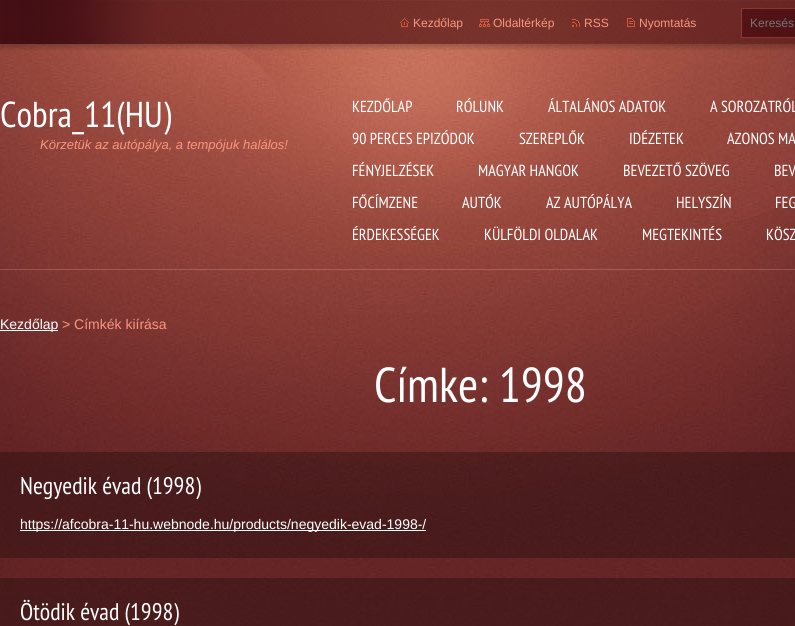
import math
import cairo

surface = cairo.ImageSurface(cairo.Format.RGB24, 795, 626)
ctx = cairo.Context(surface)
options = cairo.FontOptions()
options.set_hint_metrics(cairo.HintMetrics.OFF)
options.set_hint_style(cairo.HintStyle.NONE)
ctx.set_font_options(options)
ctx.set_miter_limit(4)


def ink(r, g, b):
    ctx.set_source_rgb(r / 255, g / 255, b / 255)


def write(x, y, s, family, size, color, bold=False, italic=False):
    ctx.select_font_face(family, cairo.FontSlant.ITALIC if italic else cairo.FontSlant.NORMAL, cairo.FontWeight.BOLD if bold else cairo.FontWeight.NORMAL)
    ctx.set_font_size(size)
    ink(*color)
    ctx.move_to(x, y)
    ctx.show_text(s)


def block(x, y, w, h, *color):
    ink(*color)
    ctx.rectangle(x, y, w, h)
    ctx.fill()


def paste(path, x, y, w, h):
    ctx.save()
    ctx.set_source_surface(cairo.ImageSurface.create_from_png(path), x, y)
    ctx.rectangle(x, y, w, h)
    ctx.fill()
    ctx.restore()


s1 = dict(family="Liberation Sans", size=12, color=(249, 150, 127))
s2 = dict(family="Liberation Sans", size=12, color=(117, 117, 117))
s3 = dict(family="PT Sans Narrow", size=36, color=(255, 255, 255))
s4 = dict(family="Liberation Sans", size=13, color=(249, 150, 127), italic=True)
s5 = dict(family="PT Sans Narrow", size=16, color=(255, 255, 255))
s6 = dict(family="Liberation Sans", size=14, color=(255, 255, 255))
s7 = dict(family="Liberation Sans", size=14, color=(249, 150, 127))
s8 = dict(family="PT Sans Narrow", size=49, color=(255, 255, 255))
s9 = dict(family="PT Sans Narrow", size=24, color=(255, 255, 255))

ink(255, 255, 255)
ctx.paint()
paste("pic1.png", 0, 600, 795, 26)
paste("pic2.png", 0, 44, 795, 556)
ctx.set_source_rgba(0.984, 0.714, 0.651, 0.26)
ctx.rectangle(0, 269, 795, 1)
ctx.fill()
paste("pic3.png", 0, 0, 795, 50)
paste("pic4.png", 5, 0, 790, 44)
paste("pic5.png", 400, 18, 9, 9)
write(413, 27, "Kezdőlap", **s1)
paste("pic6.png", 479, 19, 11, 8)
write(493, 27, "Oldaltérkép", **s1)
paste("pic7.png", 572, 19, 8, 8)
write(584, 27, "RSS", **s1)
paste("pic8.png", 627, 18, 8, 9)
write(639, 27, "Nyomtatás", **s1)
paste("pic9.png", 741, 8, 54, 30)
write(750, 27, "Keresés", **s2)
write(0, 127, "Cobra_11(HU)", **s3)
write(40, 149, "Körzetük az autópálya, a tempójuk halálos!", **s4)
write(352, 112, "KEZDŐLAP", **s5)
write(456, 112, "RÓLUNK", **s5)
write(548, 112, "ÁLTALÁNOS ADATOK", **s5)
write(710, 112, "A SOROZATRÓL", **s5)
write(352, 144, "90 PERCES EPIZÓDOK", **s5)
write(519, 144, "SZEREPLŐK", **s5)
write(629, 144, "IDÉZETEK", **s5)
write(727, 144, "AZONOS MA", **s5)
write(352, 176, "FÉNYJELZÉSEK", **s5)
write(478, 176, "MAGYAR HANGOK", **s5)
write(623, 176, "BEVEZETŐ SZÖVEG", **s5)
write(774, 176, "BEV", **s5)
write(352, 208, "FŐCÍMZENE", **s5)
write(462, 208, "AUTÓK", **s5)
write(546, 208, "AZ AUTÓPÁLYA", **s5)
write(676, 208, "HELYSZÍN", **s5)
write(775, 208, "FEG", **s5)
write(352, 240, "ÉRDEKESSÉGEK", **s5)
write(484, 240, "KÜLFÖLDI OLDALAK", **s5)
write(642, 240, "MEGTEKINTÉS", **s5)
write(766, 240, "KÖSZ", **s5)
block(0, 330, 58, 1, 255, 255, 255)
write(0, 329, "Kezdőlap", **s6)
write(62, 329, "> Címkék kiírása", **s7)
write(374, 402, "Címke: 1998", **s8)
ctx.set_source_rgba(0, 0, 0, 0.27)
ctx.rectangle(0, 452, 795, 106)
ctx.fill()
write(20, 494, "Negyedik évad (1998)", **s9)
block(20, 530, 406, 1, 255, 255, 255)
write(20, 529, "https://afcobra-11-hu.webnode.hu/products/negyedik-evad-1998-/", **s6)
ctx.set_source_rgba(0, 0, 0, 0.27)
ctx.rectangle(0, 578, 795, 48)
ctx.fill()
write(20, 620, "Ötödik évad (1998)", **s9)
surface.write_to_png("screenshot.png")
